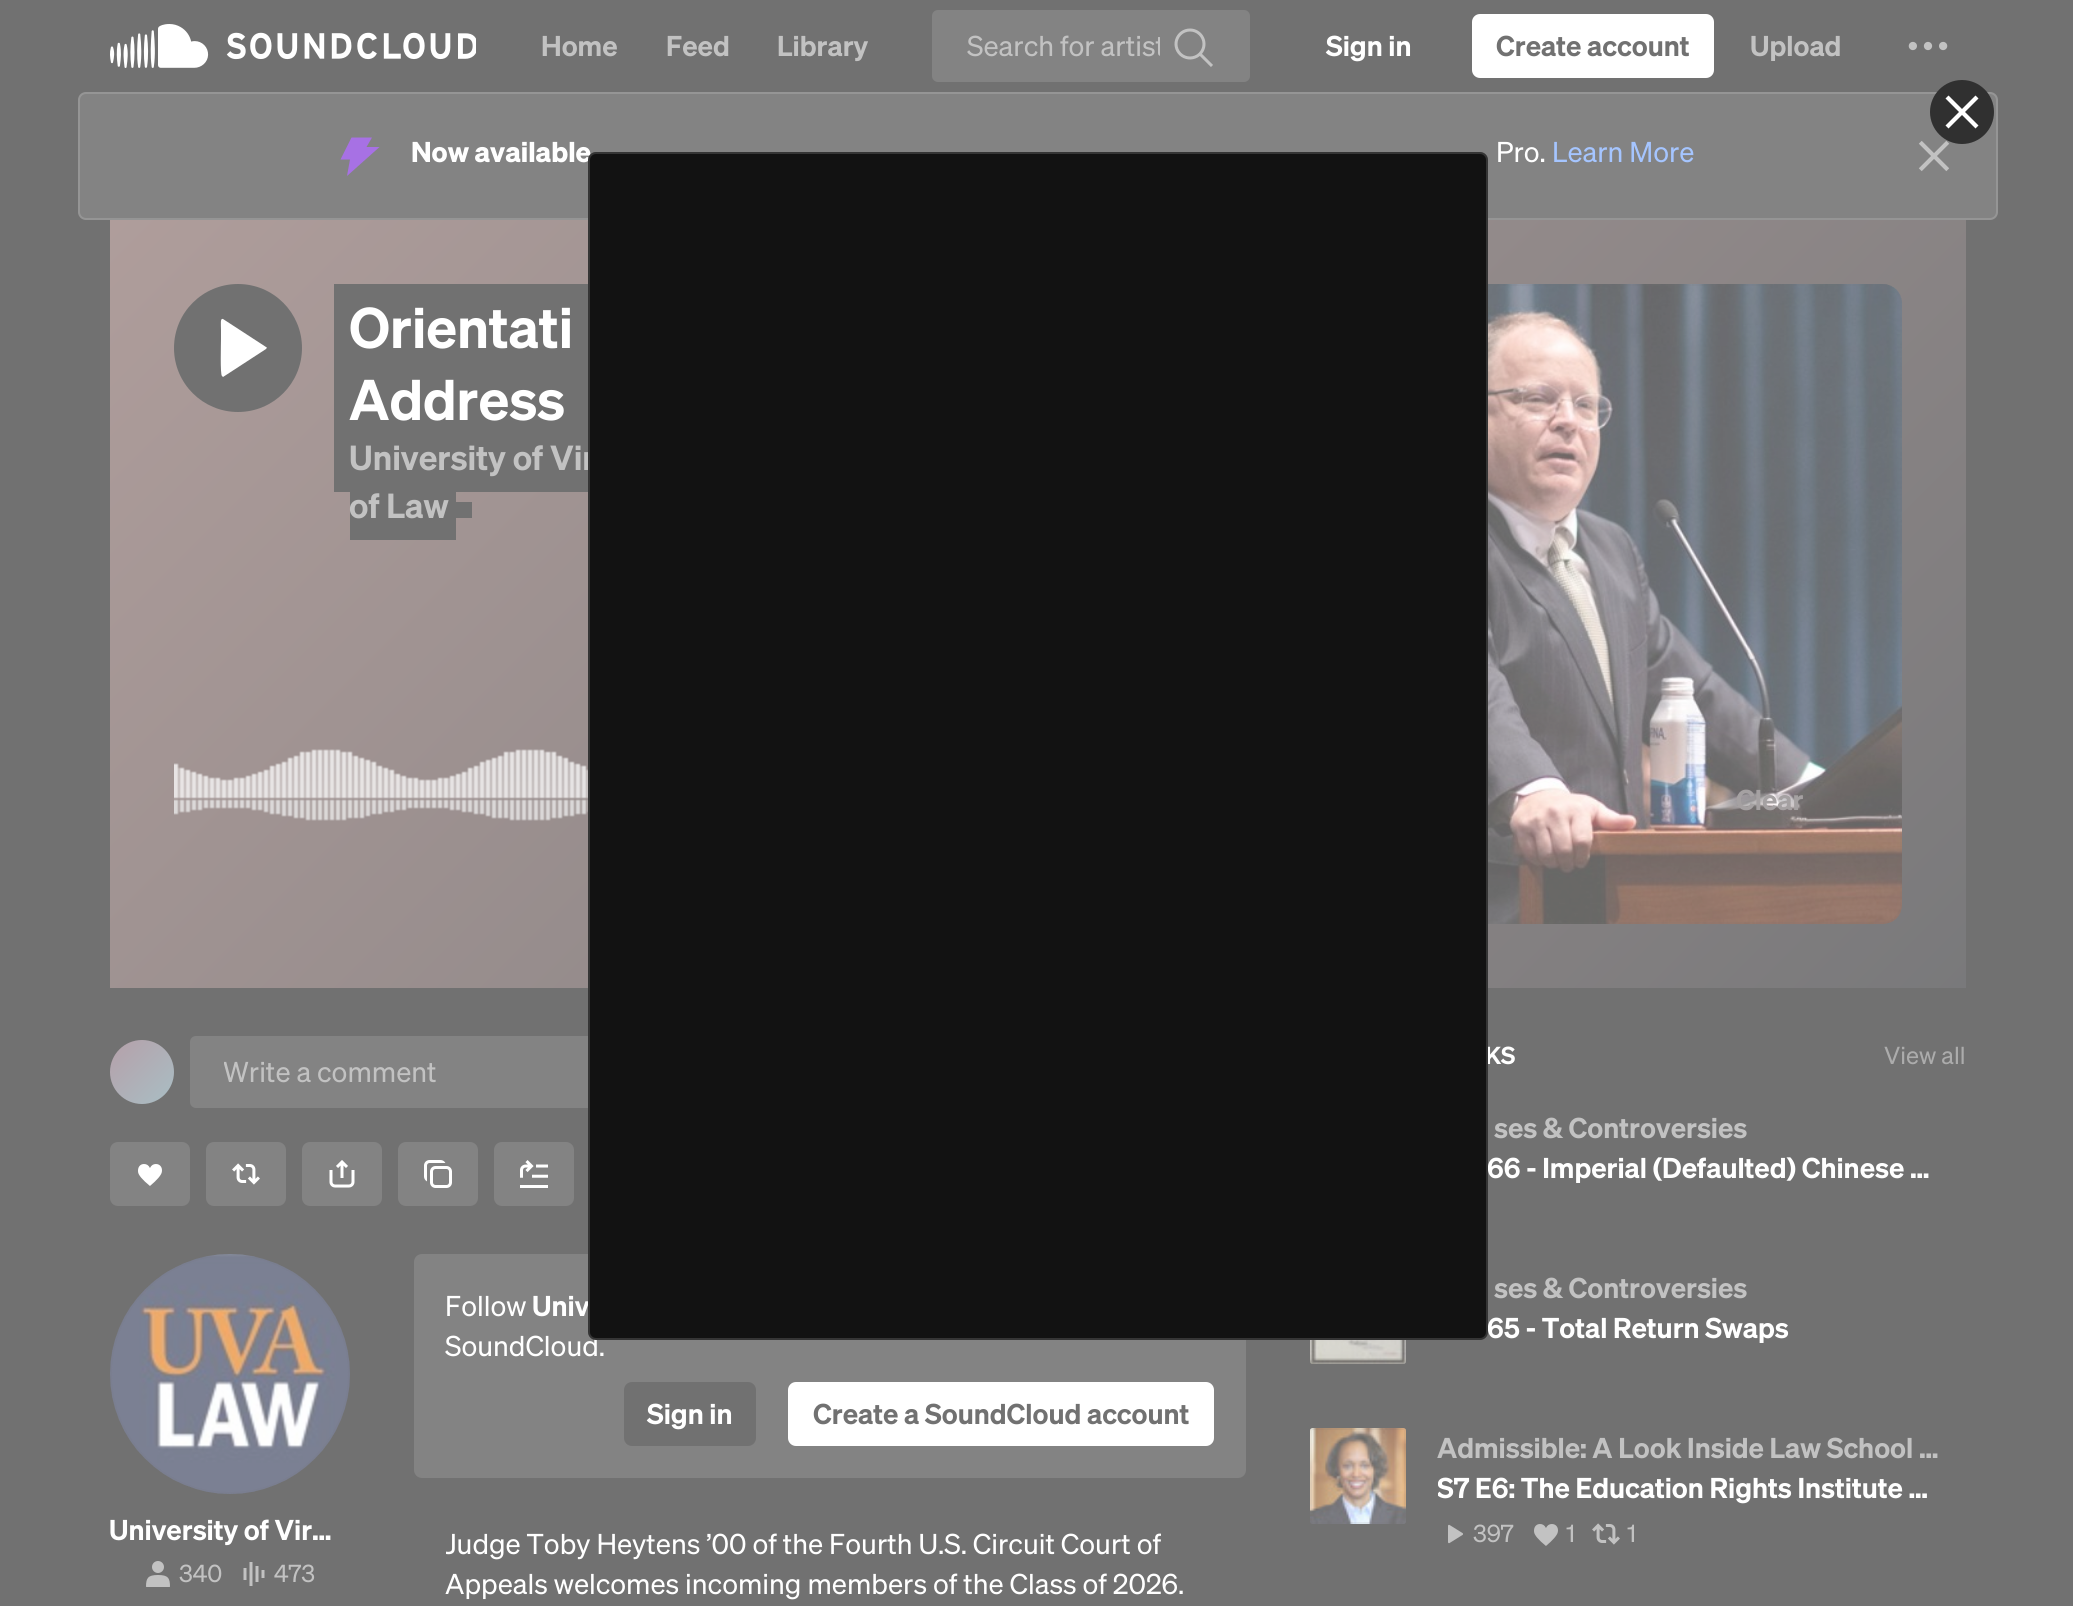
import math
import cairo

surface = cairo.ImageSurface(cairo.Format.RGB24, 2073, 1606)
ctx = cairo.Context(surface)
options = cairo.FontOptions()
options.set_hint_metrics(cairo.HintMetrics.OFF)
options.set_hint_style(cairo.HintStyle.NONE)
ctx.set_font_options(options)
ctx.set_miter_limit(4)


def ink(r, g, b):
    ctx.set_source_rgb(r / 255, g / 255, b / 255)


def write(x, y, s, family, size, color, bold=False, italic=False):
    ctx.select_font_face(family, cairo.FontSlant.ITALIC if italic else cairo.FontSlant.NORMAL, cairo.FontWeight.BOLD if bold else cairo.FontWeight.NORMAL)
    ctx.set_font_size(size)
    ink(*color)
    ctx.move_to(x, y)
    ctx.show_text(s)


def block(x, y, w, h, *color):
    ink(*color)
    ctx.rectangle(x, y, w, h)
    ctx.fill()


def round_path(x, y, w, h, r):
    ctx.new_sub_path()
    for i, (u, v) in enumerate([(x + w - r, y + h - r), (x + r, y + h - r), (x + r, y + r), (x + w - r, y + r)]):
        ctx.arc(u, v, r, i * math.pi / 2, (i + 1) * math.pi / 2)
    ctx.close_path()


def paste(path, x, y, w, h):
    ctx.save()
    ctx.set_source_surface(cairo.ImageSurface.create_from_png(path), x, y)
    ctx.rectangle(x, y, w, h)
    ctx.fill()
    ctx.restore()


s1 = dict(family="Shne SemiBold", size=28, color=(194, 194, 194))
s2 = dict(family="Shne", size=28, color=(194, 194, 194))
s3 = dict(family="Shne SemiBold", size=28, color=(255, 255, 255))
s4 = dict(family="Shne SemiBold", size=28, color=(113, 113, 113))
s5 = dict(family="Shne", size=28, color=(255, 255, 255), bold=True)
s6 = dict(family="Shne", size=28, color=(255, 255, 255))
s7 = dict(family="Shne", size=28, color=(165, 197, 255))
s8 = dict(family="Shne SemiBold", size=56, color=(255, 255, 255))
s9 = dict(family="Shne SemiBold", size=34, color=(194, 194, 194))
s10 = dict(family="Shne", size=24, color=(194, 194, 194))
s11 = dict(family="Shne SemiBold", size=24, color=(255, 255, 255))
s12 = dict(family="Shne", size=24, color=(172, 172, 172))
s13 = dict(family="Shne SemiBold", size=28, color=(165, 161, 162))

ink(113, 113, 113)
ctx.paint()
paste("pic1.png", 110, 24, 366, 44)
write(541, 56, "Home", **s1)
write(666, 56, "Feed", **s1)
write(777, 56, "Library", **s1)
ink(131, 131, 131)
round_path(932, 10, 318, 72, 6)
ctx.fill()
ctx.save()
ctx.rectangle(966, 24, 194, 44)
ctx.clip()
write(967, 56, "Search for artist", **s2)
ctx.restore()
paste("pic2.png", 1174, 28, 39, 39)
write(1326, 56, "Sign in", **s3)
round_path(1472, 14, 242, 64, 8)
ctx.fill()
write(1496, 56, "Create account", **s4)
write(1750, 56, "Upload", **s1)
paste("pic3.png", 1908, 41, 40, 10)
ink(131, 131, 131)
round_path(78, 92, 1920, 128, 8)
ctx.fill()
round_path(79, 93, 1918, 126, 7)
ctx.set_source_rgba(1, 1, 1, 0.15)
ctx.stroke()
ink(167, 113, 228)
ctx.new_path()
ctx.move_to(351.5, 137.5)
ctx.line_to(340.5, 159.5)
ctx.line_to(350, 159.5)
ctx.line_to(347, 176)
ctx.line_to(379.5, 147)
ctx.line_to(366.5, 147)
ctx.line_to(372, 137.5)
ctx.close_path()
ctx.fill()
write(411, 162, "Now available", **s5)
write(1496, 162, "Pro.", **s6)
write(1552, 162, "Learn More", **s7)
paste("pic4.png", 1918, 140, 32, 32)
gradient = cairo.LinearGradient(382, -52, 1694, 1260)
gradient.add_color_stop_rgba(0, 0.686, 0.616, 0.608, 1)
gradient.add_color_stop_rgba(1, 0.475, 0.475, 0.482, 1)
ctx.set_source(gradient)
ctx.rectangle(110, 220, 1856, 768)
ctx.fill()
ink(113, 113, 113)
ctx.arc(238, 348, 64, 0, 2 * math.pi)
ctx.fill()
ink(255, 255, 255)
ctx.set_fill_rule(cairo.FillRule.EVEN_ODD)
ctx.new_path()
ctx.move_to(266, 347)
ctx.curve_to(267, 347, 267, 348, 266, 349)
ctx.line_to(223, 377)
ctx.line_to(222, 376)
ctx.curve_to(220, 375, 221, 343, 221, 339)
ctx.line_to(221, 330)
ctx.curve_to(221, 324, 220, 318, 223, 319)
ctx.close_path()
ctx.fill()
block(334, 284, 254, 208, 113, 113, 113)
write(349, 348, "Orientati", **s8)
write(349, 420, "Address", **s8)
write(349, 470, "University of Vir", **s9)
block(350, 492, 106, 48, 113, 113, 113)
write(349, 518, "of Law", **s9)
block(456, 502, 16, 16, 113, 113, 113)
paste("pic5.png", 1488, 284, 414, 640)
round_path(1263, 285, 638, 638, 19)
ctx.set_source_rgba(0.443, 0.443, 0.443, 0.1)
ctx.stroke()
paste("pic6.png", 174, 749, 414, 72)
gradient = cairo.LinearGradient(110, 1040, 174, 1104)
gradient.add_color_stop_rgba(0, 0.71, 0.627, 0.663, 1)
gradient.add_color_stop_rgba(1, 0.663, 0.745, 0.769, 1)
ctx.set_source(gradient)
ctx.arc(142, 1072, 32, 0, 2 * math.pi)
ctx.fill()
ink(131, 131, 131)
round_path(190, 1036, 912, 72, 6)
ctx.fill()
ctx.save()
ctx.set_fill_rule(cairo.FillRule.WINDING)
ctx.rectangle(224, 1050, 844, 44)
ctx.clip()
write(223, 1082, "Write a comment", **s2)
ctx.restore()
round_path(110, 1142, 80, 64, 8)
ctx.fill()
paste("pic7.png", 138, 1164, 24, 22)
round_path(206, 1142, 80, 64, 8)
ctx.fill()
paste("pic8.png", 232, 1163, 28, 22)
round_path(302, 1142, 80, 64, 8)
ctx.fill()
paste("pic9.png", 329, 1160, 26, 28)
round_path(398, 1142, 80, 64, 8)
ctx.fill()
paste("pic10.png", 424, 1160, 28, 28)
round_path(494, 1142, 80, 64, 8)
ctx.fill()
paste("pic11.png", 520, 1160, 28, 28)
paste("pic12.png", 110, 1254, 240, 240)
ctx.arc(230, 1374, 119, 0, 2 * math.pi)
ctx.set_source_rgba(0.443, 0.443, 0.443, 0.1)
ctx.stroke()
write(109, 1540, "University of Vir…", **s3)
paste("pic13.png", 146, 1561, 24, 26)
write(179, 1582, "340", **s10)
paste("pic14.png", 243, 1562, 22, 24)
write(274, 1582, "473", **s10)
ink(131, 131, 131)
round_path(414, 1254, 832, 224, 8)
ctx.fill()
write(445, 1316, "Follow", **s6)
write(532, 1316, "Univ", **s3)
write(445, 1356, "SoundCloud.", **s6)
ink(113, 113, 113)
round_path(624, 1382, 132, 64, 8)
ctx.fill()
write(647, 1424, "Sign in", **s3)
round_path(788, 1382, 426, 64, 8)
ctx.fill()
write(813, 1424, "Create a SoundCloud account", **s4)
ctx.save()
ctx.set_fill_rule(cairo.FillRule.WINDING)
ctx.rectangle(446, 1524, 768, 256)
ctx.clip()
write(445, 1554, "Judge Toby Heytens ’00 of the Fourth U.S. Circuit Court of", **s6)
ctx.restore()
write(445, 1594, "Appeals welcomes incoming members of the Class of 2026.", **s6)
write(1485, 1064, "KS", **s11)
write(1884, 1064, "View all", **s12)
write(1494, 1138, "ses & Controversies", **s1)
write(1487, 1178, "66 - Imperial (Defaulted) Chinese …", **s3)
paste("pic15.png", 1310, 1340, 96, 24)
round_path(1311, 1269, 94, 94, 2)
ctx.set_source_rgba(0.443, 0.443, 0.443, 0.1)
ctx.stroke()
write(1494, 1298, "ses & Controversies", **s1)
write(1487, 1338, "65 - Total Return Swaps", **s3)
paste("pic16.png", 1310, 1428, 96, 96)
round_path(1311, 1429, 94, 94, 2)
ctx.set_source_rgba(0.443, 0.443, 0.443, 0.1)
ctx.stroke()
write(1437, 1458, "Admissible: A Look Inside Law School …", **s1)
ctx.save()
ctx.set_fill_rule(cairo.FillRule.WINDING)
ctx.rectangle(1438, 1468, 504, 40)
ctx.clip()
write(1437, 1498, "S7 E6: The Education Rights Institute …", **s3)
ctx.restore()
paste("pic17.png", 1448, 1524, 15, 20)
write(1473, 1542, "397", **s10)
paste("pic18.png", 1534, 1524, 24, 22)
write(1566, 1542, "1", **s10)
paste("pic19.png", 1592, 1523, 28, 22)
write(1627, 1542, "1", **s10)
write(1736, 810, "Clear", **s13)
ink(48, 48, 48)
ctx.new_path()
ctx.arc(1962, 112, 32, 0, 2 * math.pi)
ctx.fill()
ink(255, 255, 255)
ctx.set_fill_rule(cairo.FillRule.WINDING)
ctx.new_path()
ctx.move_to(1959, 112)
ctx.line_to(1945.5, 125.5)
ctx.line_to(1948.5, 128.5)
ctx.line_to(1962, 115)
ctx.line_to(1975.5, 128.5)
ctx.line_to(1978.5, 125.5)
ctx.line_to(1965, 112)
ctx.line_to(1978.5, 98.5)
ctx.line_to(1975.5, 95.5)
ctx.line_to(1962, 109)
ctx.line_to(1948.5, 95.5)
ctx.line_to(1945.5, 98.5)
ctx.close_path()
ctx.fill()
ink(18, 18, 18)
round_path(588, 152, 900, 1188, 8)
ctx.fill()
round_path(589, 153, 898, 1186, 7)
ctx.set_source_rgba(1, 1, 1, 0.15)
ctx.stroke()
surface.write_to_png("screenshot.png")
